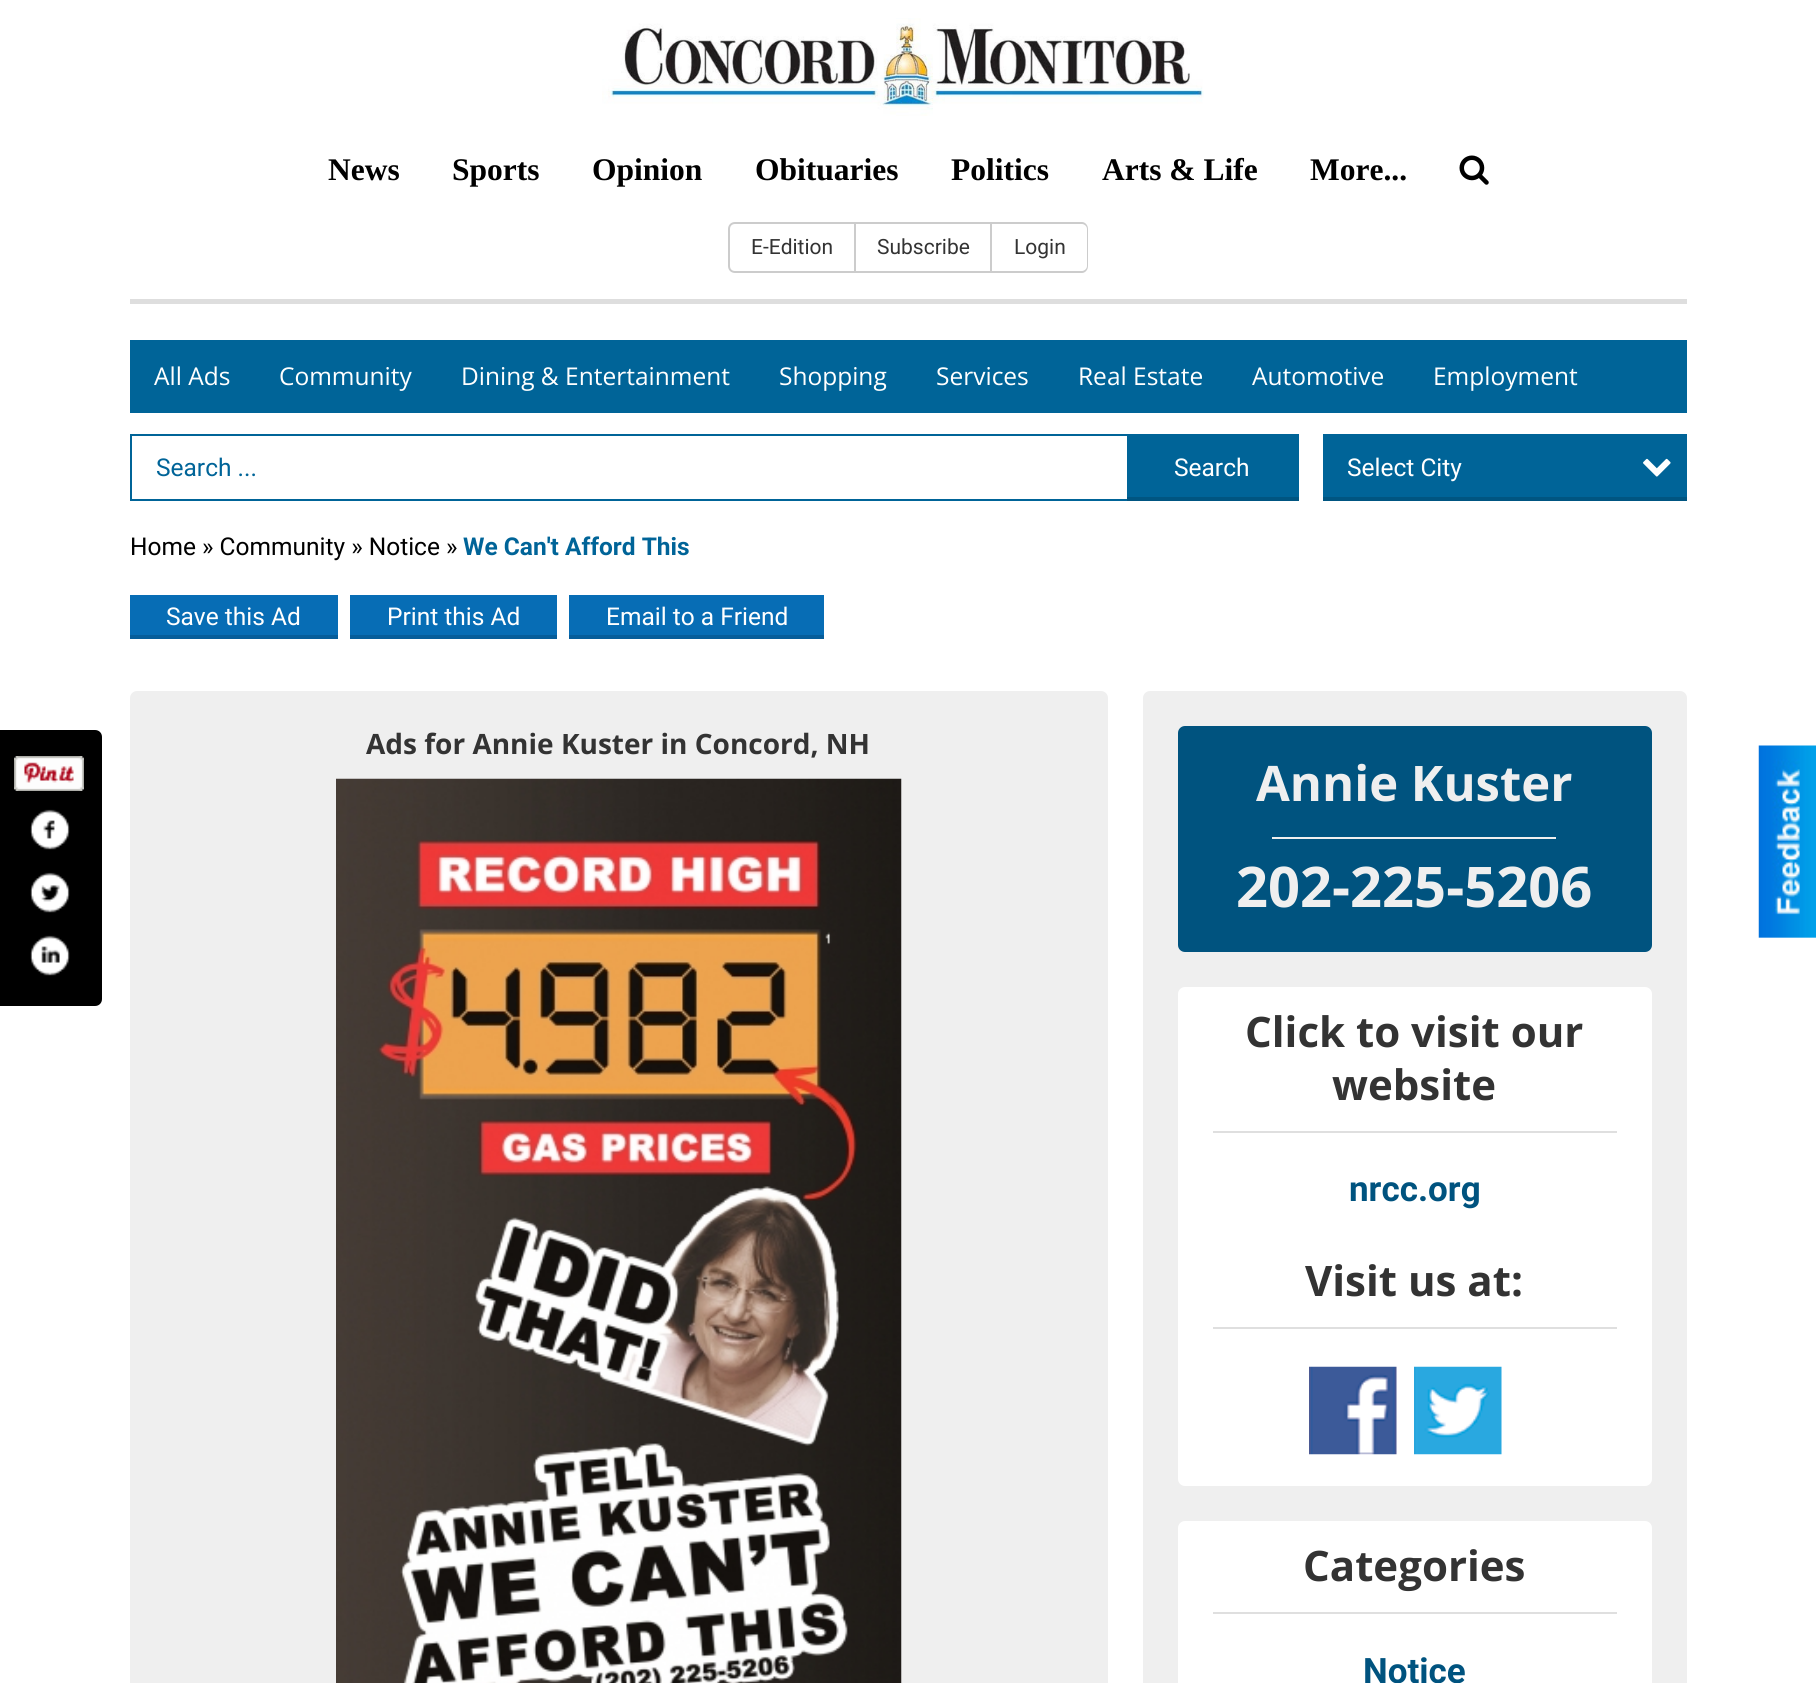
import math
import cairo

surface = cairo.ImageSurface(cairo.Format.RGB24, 1816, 1683)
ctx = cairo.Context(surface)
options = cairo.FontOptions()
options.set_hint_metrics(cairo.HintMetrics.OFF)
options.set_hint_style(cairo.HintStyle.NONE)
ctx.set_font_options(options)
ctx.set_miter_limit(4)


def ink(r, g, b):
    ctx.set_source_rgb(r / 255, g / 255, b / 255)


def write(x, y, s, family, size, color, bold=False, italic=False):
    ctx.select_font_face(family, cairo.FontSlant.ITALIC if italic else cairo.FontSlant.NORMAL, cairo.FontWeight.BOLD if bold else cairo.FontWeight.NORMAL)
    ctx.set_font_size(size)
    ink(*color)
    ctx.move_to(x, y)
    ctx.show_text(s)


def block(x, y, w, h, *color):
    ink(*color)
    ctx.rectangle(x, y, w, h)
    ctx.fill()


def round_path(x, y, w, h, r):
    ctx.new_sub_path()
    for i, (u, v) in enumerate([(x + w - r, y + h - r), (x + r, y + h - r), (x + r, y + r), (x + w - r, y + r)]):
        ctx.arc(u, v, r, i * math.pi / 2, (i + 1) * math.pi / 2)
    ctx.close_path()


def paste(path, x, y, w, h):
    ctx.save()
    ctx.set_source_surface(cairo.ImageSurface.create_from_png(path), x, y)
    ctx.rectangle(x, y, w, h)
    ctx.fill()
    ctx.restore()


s1 = dict(family="Liberation Serif", size=31.5, color=(0, 0, 0), bold=True)
s2 = dict(family="Roboto", size=21, color=(51, 51, 51))
s3 = dict(family="Open Sans", size=24.5, color=(255, 255, 255))
s4 = dict(family="Roboto", size=24.5, color=(0, 100, 152))
s5 = dict(family="Roboto", size=24.5, color=(255, 255, 255))
s6 = dict(family="Roboto", size=24.5, color=(0, 0, 0))
s7 = dict(family="Roboto", size=24.5, color=(0, 100, 152), bold=True)
s8 = dict(family="Open Sans", size=28, color=(51, 51, 51), bold=True)
s9 = dict(family="Open Sans", size=49, color=(239, 239, 239), bold=True)
s10 = dict(family="Open Sans", size=56, color=(239, 239, 239), bold=True)
s11 = dict(family="Open Sans", size=42, color=(51, 51, 51), bold=True)
s12 = dict(family="Roboto", size=35, color=(0, 83, 127), bold=True)

ink(255, 255, 255)
ctx.paint()
block(130, 299, 1557, 5, 222, 222, 222)
paste("pic1.png", 602, 18, 602, 98)
write(328, 180, "News", **s1)
write(452, 180, "Sports", **s1)
write(592, 180, "Opinion", **s1)
write(755, 180, "Obituaries", **s1)
write(951, 180, "Politics", **s1)
write(1102, 180, "Arts & Life", **s1)
write(1310, 180, "More...", **s1)
paste("pic2.png", 1459, 155, 30, 30)
ink(204, 204, 204)
ctx.set_fill_rule(cairo.FillRule.EVEN_ODD)
ctx.new_path()
ctx.move_to(735, 222)
ctx.line_to(854, 222)
ctx.line_to(854, 273)
ctx.line_to(735, 273)
ctx.curve_to(731, 273, 728, 270, 728, 266)
ctx.line_to(728, 229)
ctx.curve_to(728, 225, 731, 222, 735, 222)
ctx.close_path()
ctx.move_to(735, 224)
ctx.line_to(854, 224)
ctx.line_to(854, 271)
ctx.line_to(735, 271)
ctx.curve_to(732, 271, 730, 269, 730, 266)
ctx.line_to(730, 229)
ctx.curve_to(730, 226, 732, 224, 735, 224)
ctx.close_path()
ctx.fill()
write(751, 254, "E-Edition", **s2)
ctx.rectangle(855, 223, 136, 49)
ink(204, 204, 204)
ctx.stroke()
write(877, 254, "Subscribe", **s2)
ink(204, 204, 204)
ctx.new_path()
ctx.move_to(992, 222)
ctx.line_to(1082, 222)
ctx.curve_to(1085, 222, 1088, 225, 1088, 229)
ctx.line_to(1088, 266)
ctx.curve_to(1088, 270, 1085, 273, 1082, 273)
ctx.line_to(992, 273)
ctx.close_path()
ctx.move_to(992, 224)
ctx.line_to(1082, 224)
ctx.curve_to(1084, 224, 1087, 226, 1087, 229)
ctx.line_to(1087, 266)
ctx.curve_to(1087, 269, 1084, 271, 1082, 271)
ctx.line_to(992, 271)
ctx.close_path()
ctx.fill()
write(1014, 254, "Login", **s2)
ink(0, 0, 0)
ctx.new_path()
ctx.move_to(0, 730)
ctx.line_to(95, 730)
ctx.curve_to(99, 730, 102, 733, 102, 737)
ctx.line_to(102, 999)
ctx.curve_to(102, 1003, 99, 1006, 95, 1006)
ctx.line_to(0, 1006)
ctx.close_path()
ctx.fill()
paste("pic3.png", 14, 756, 70, 35)
paste("pic4.png", 30, 809, 40, 41)
paste("pic5.png", 30, 872, 40, 41)
paste("pic6.png", 30, 935, 40, 41)
block(130, 340, 1557, 73, 0, 100, 152)
write(154, 385, "All Ads", **s3)
write(279, 385, "Community", **s3)
write(461, 385, "Dining & Entertainment", **s3)
write(779, 385, "Shopping", **s3)
write(936, 385, "Services", **s3)
write(1078, 385, "Real Estate", **s3)
write(1252, 385, "Automotive", **s3)
write(1433, 385, "Employment", **s3)
ctx.rectangle(131, 435, 1167, 65)
ink(0, 100, 152)
ctx.stroke()
write(156, 476, "Search ...", **s4)
block(1127, 436, 170, 61, 0, 100, 152)
block(1127, 497, 172, 4, 0, 85, 129)
write(1174, 476, "Search", **s5)
block(1323, 434, 364, 63, 0, 100, 152)
block(1323, 497, 364, 4, 0, 85, 129)
write(1347, 476, "Select City", **s5)
paste("pic7.png", 1643, 458, 28, 19)
write(130, 555, "Home » Community » Notice »", **s6)
write(463, 555, "We Can't Afford This", **s7)
block(130, 595, 208, 40, 7, 109, 181)
block(130, 635, 208, 4, 6, 93, 154)
write(166, 625, "Save this Ad", **s5)
block(350, 595, 207, 40, 7, 109, 181)
block(350, 635, 207, 4, 6, 93, 154)
write(387, 625, "Print this Ad", **s5)
block(569, 595, 255, 40, 7, 109, 181)
block(569, 635, 255, 4, 6, 93, 154)
write(606, 625, "Email to a Friend", **s5)
ink(239, 239, 239)
round_path(130, 691, 978, 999, 7)
ctx.fill()
write(366, 754, "Ads for Annie Kuster in Concord, NH", **s8)
paste("pic8.png", 336, 778, 566, 905)
ink(239, 239, 239)
round_path(1143, 691, 544, 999, 7)
ctx.fill()
ink(0, 83, 127)
round_path(1178, 726, 474, 226, 7)
ctx.fill()
write(1256, 801, "Annie Kuster", **s9)
block(1272, 837, 284, 2, 239, 239, 239)
write(1236, 907, "202-225-5206", **s10)
ink(255, 255, 255)
round_path(1178, 987, 474, 499, 7)
ctx.fill()
block(1213, 1131, 404, 2, 223, 223, 223)
write(1245, 1047, "Click to visit our", **s11)
write(1332, 1100, "website", **s11)
write(1349, 1201, "nrcc.org", **s12)
block(1213, 1327, 404, 2, 223, 223, 223)
write(1305, 1296, "Visit us at:", **s11)
paste("pic9.png", 1309, 1366, 88, 89)
paste("pic10.png", 1414, 1366, 88, 89)
ink(255, 255, 255)
round_path(1178, 1521, 474, 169, 7)
ctx.fill()
block(1213, 1612, 404, 2, 223, 223, 223)
write(1303, 1581, "Categories", **s11)
write(1363, 1683, "Notice", **s12)
paste("pic11.png", 1758, 745, 58, 193)
surface.write_to_png("screenshot.png")
